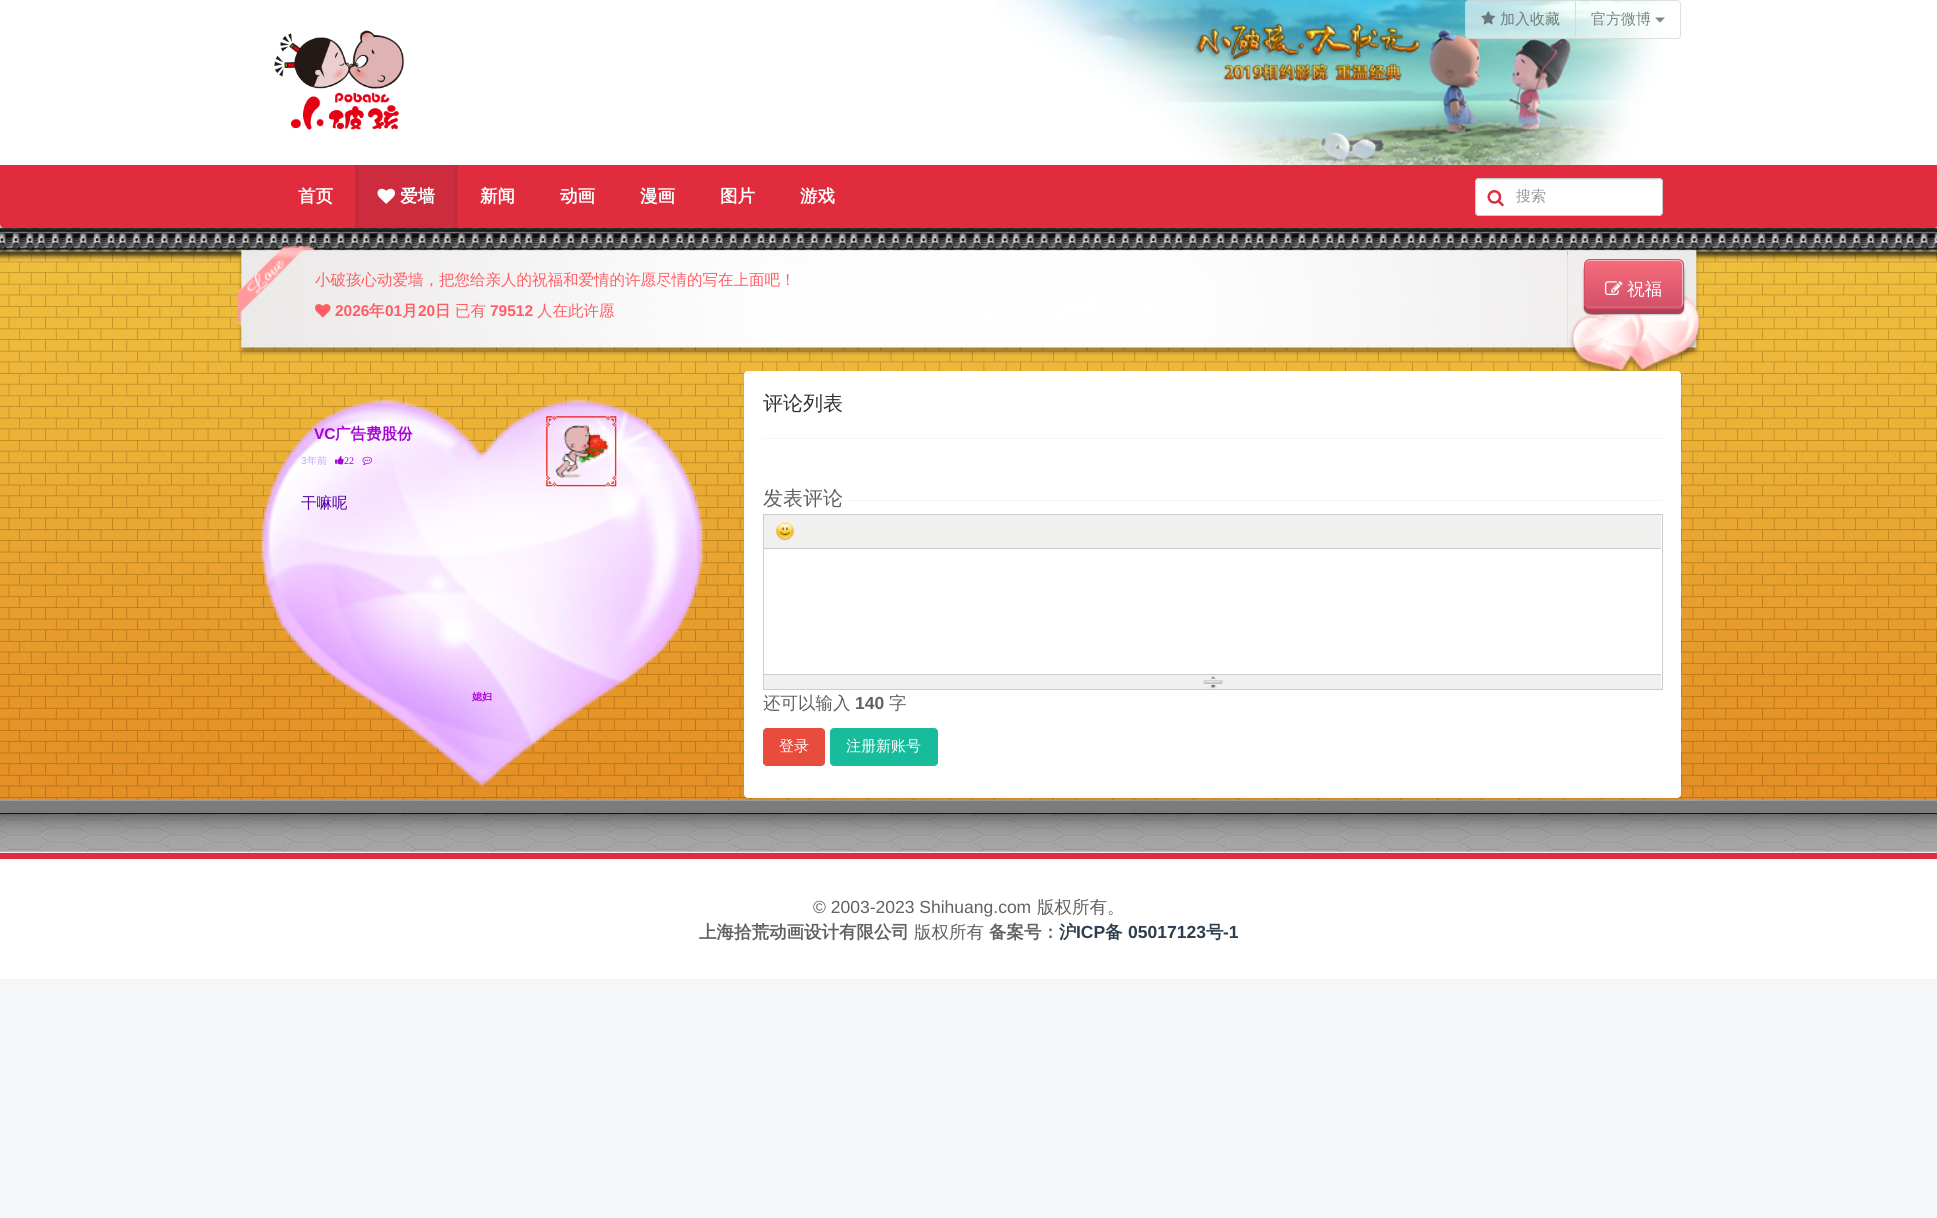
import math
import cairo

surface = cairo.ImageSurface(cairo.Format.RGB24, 1937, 1218)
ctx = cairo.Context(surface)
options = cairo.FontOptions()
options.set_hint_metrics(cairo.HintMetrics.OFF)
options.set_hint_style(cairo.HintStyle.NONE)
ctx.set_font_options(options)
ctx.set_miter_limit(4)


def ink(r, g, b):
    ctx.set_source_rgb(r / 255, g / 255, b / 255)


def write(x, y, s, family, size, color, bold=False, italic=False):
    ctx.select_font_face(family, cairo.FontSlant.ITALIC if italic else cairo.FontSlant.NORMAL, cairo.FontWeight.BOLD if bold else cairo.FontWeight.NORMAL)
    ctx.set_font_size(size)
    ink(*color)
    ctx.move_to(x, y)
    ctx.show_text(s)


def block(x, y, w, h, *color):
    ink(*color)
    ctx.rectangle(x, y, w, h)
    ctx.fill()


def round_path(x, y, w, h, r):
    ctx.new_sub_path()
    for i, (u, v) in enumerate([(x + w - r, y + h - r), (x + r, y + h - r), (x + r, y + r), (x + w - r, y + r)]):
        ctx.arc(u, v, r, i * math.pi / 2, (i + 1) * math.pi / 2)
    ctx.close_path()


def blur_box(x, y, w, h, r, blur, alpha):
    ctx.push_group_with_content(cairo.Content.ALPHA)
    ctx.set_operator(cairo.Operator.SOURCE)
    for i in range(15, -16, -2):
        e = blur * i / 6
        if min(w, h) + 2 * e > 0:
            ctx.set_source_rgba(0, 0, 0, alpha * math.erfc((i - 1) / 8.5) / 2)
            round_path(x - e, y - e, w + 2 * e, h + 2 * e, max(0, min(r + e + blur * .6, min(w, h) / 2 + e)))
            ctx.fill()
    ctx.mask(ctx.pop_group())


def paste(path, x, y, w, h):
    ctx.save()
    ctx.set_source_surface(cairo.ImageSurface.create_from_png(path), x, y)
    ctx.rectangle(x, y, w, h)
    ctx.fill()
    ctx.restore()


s1 = dict(family="WenQuanYi Zen Hei Medium", size=15, color=(111, 124, 124))
s2 = dict(family="WenQuanYi Zen Hei Medium", size=15, color=(126, 131, 130))
s3 = dict(family="WenQuanYi Zen Hei", size=17.5, color=(255, 255, 255), bold=True)
s4 = dict(family="WenQuanYi Zen Hei Medium", size=15, color=(153, 153, 153))
s5 = dict(family="WenQuanYi Zen Hei Medium", size=15.5, color=(255, 93, 100))
s6 = dict(family="Liberation Sans", size=15.5, color=(255, 93, 100), bold=True)
s7 = dict(family="WenQuanYi Zen Hei", size=15.5, color=(255, 93, 100), bold=True)
s8 = dict(family="WenQuanYi Zen Hei Medium", size=17.5, color=(255, 255, 255))
s9 = dict(family="Liberation Sans", size=15.5, color=(168, 0, 216), bold=True)
s10 = dict(family="WenQuanYi Zen Hei", size=15.5, color=(168, 0, 216), bold=True)
s11 = dict(family="Liberation Sans", size=10, color=(192, 164, 255))
s12 = dict(family="WenQuanYi Zen Hei Medium", size=10, color=(192, 164, 255))
s13 = dict(family="Liberation Serif", size=10, color=(168, 0, 216))
s14 = dict(family="WenQuanYi Zen Hei Medium", size=15.5, color=(80, 4, 160))
s15 = dict(family="WenQuanYi Zen Hei", size=10, color=(168, 0, 216), bold=True)
s16 = dict(family="WenQuanYi Zen Hei Medium", size=20, color=(51, 51, 51))
s17 = dict(family="WenQuanYi Zen Hei Medium", size=20, color=(97, 97, 97))
s18 = dict(family="WenQuanYi Zen Hei Medium", size=17.5, color=(97, 97, 97))
s19 = dict(family="Liberation Sans", size=17.5, color=(97, 97, 97), bold=True)
s20 = dict(family="WenQuanYi Zen Hei Medium", size=15, color=(255, 255, 255))
s21 = dict(family="Liberation Sans", size=17.5, color=(97, 97, 97))
s22 = dict(family="WenQuanYi Zen Hei", size=17.5, color=(97, 97, 97), bold=True)
s23 = dict(family="WenQuanYi Zen Hei", size=17.5, color=(44, 62, 80), bold=True)
s24 = dict(family="Liberation Sans", size=17.5, color=(44, 62, 80), bold=True)

ink(244, 246, 248)
ctx.paint()
paste("pic6.png", 0, 227, 1937, 626)
ink(225, 44, 61)
round_path(0, 0, 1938, 228, 4)
ctx.fill()
block(0, 0, 1937, 165, 255, 255, 255)
paste("pic1.png", 997, 0, 669, 165)
ctx.set_source_rgba(1, 1, 1, 0.6)
ctx.new_path()
ctx.move_to(1469, 0)
ctx.line_to(1576, 0)
ctx.line_to(1576, 39)
ctx.line_to(1469, 39)
ctx.curve_to(1467, 39, 1465, 37, 1465, 35)
ctx.line_to(1465, 4)
ctx.curve_to(1465, 2, 1467, 0, 1469, 0)
ctx.close_path()
ctx.fill()
ctx.new_path()
ctx.move_to(1469, 0.5)
ctx.line_to(1575.5, 0.5)
ctx.line_to(1575.5, 38.5)
ctx.line_to(1469, 38.5)
ctx.curve_to(1467, 38.5, 1465.5, 37, 1465.5, 35)
ctx.line_to(1465.5, 4)
ctx.curve_to(1465.5, 2, 1467, 0.5, 1469, 0.5)
ctx.close_path()
ctx.set_source_rgba(0.8, 0.8, 0.8, 0.6)
ctx.set_line_width(1)
ctx.stroke()
paste("pic2.png", 1481, 11, 15, 14)
write(1500, 24, "加入收藏", **s1)
ctx.set_source_rgba(1, 1, 1, 0.6)
ctx.new_path()
ctx.move_to(1575, 0)
ctx.line_to(1677, 0)
ctx.curve_to(1679, 0, 1681, 2, 1681, 4)
ctx.line_to(1681, 35)
ctx.curve_to(1681, 37, 1679, 39, 1677, 39)
ctx.line_to(1575, 39)
ctx.close_path()
ctx.fill()
ctx.new_path()
ctx.move_to(1575.5, 0.5)
ctx.line_to(1677, 0.5)
ctx.curve_to(1679, 0.5, 1680.5, 2, 1680.5, 4)
ctx.line_to(1680.5, 35)
ctx.curve_to(1680.5, 37, 1679, 38.5, 1677, 38.5)
ctx.line_to(1575.5, 38.5)
ctx.close_path()
ctx.set_source_rgba(0.8, 0.8, 0.8, 0.6)
ctx.stroke()
write(1591, 24, "官方微博", **s2)
ink(131, 133, 132)
ctx.new_path()
ctx.move_to(1655, 17.5)
ctx.line_to(1665, 17.5)
ctx.line_to(1660, 22.5)
ctx.close_path()
ctx.fill()
paste("pic3.png", 274, 30, 130, 100)
write(298, 202, "首页", **s3)
block(359, 165, 95, 63, 204, 44, 61)
block(454, 165, 4, 63, 194, 44, 61)
block(355, 165, 4, 63, 194, 44, 61)
paste("pic4.png", 377, 188, 18, 16)
write(400, 202, "爱墙", **s3)
write(480, 202, "新闻", **s3)
write(560, 202, "动画", **s3)
write(640, 202, "漫画", **s3)
write(720, 202, "图片", **s3)
write(800, 202, "游戏", **s3)
round_path(1475, 178, 188, 38, 4)
ctx.fill()
ink(236, 236, 236)
ctx.new_path()
ctx.move_to(1479, 180)
ctx.line_to(1659, 180)
ctx.curve_to(1660, 180, 1661, 181, 1661, 182)
ctx.curve_to(1661, 180, 1660, 179, 1658, 179)
ctx.line_to(1478, 179)
ctx.line_to(1477, 180)
ctx.line_to(1476, 182)
ctx.curve_to(1476, 181, 1477, 180, 1479, 180)
ctx.close_path()
ctx.fill()
round_path(1475.5, 178.5, 187, 37, 3.5)
ink(204, 204, 204)
ctx.stroke()
paste("pic5.png", 1487, 190, 17, 17)
write(1516, 201, "搜索", **s4)
paste("pic7.png", 237, 246, 78, 110)
paste("pic8.png", 315, 249, 1253, 107)
write(315, 285, "小破孩心动爱墙，把您给亲人的祝福和爱情的许愿尽情的写在上面吧！", **s5)
paste("pic9.png", 315, 304, 16, 14)
write(335, 316, "2026", **s6)
write(369, 316, "年", **s7)
write(385, 316, "01", **s6)
write(402, 316, "月", **s7)
write(418, 316, "20", **s6)
write(435, 316, "日", **s7)
write(455, 316, "已有", **s5)
write(490, 316, "79512", **s6)
write(537, 316, "人在此许愿", **s5)
paste("pic10.png", 1567, 249, 133, 122)
ink(0, 0, 0)
blur_box(1584, 264, 100, 50, 6, 1, 0.5)
ink(173, 66, 87)
ctx.new_path()
ctx.move_to(1584, 304)
ctx.line_to(1584, 309)
ctx.curve_to(1586, 317, 1601, 314, 1605, 314)
ctx.line_to(1678, 314)
ctx.curve_to(1685, 314, 1684, 306, 1684, 302)
ctx.line_to(1684, 268)
ctx.line_to(1684, 302)
ctx.curve_to(1684, 306, 1681, 309, 1678, 309)
ctx.line_to(1590, 309)
ctx.curve_to(1587, 309, 1585, 307, 1584, 304)
ctx.close_path()
ctx.fill()
ctx.save()
round_path(1584, 259, 100, 50, 6)
ctx.clip()
gradient = cairo.LinearGradient(1634, 260, 1634, 308)
gradient.add_color_stop_rgba(0, 0.965, 0.424, 0.482, 1)
gradient.add_color_stop_rgba(1, 0.824, 0.314, 0.408, 1)
ctx.set_source(gradient)
ctx.rectangle(1584, 260, 100, 48)
ctx.fill()
ctx.restore()
ctx.set_source_rgba(1, 1, 1, 0.1)
ctx.new_path()
ctx.move_to(1585, 301)
ctx.line_to(1585, 303)
ctx.curve_to(1585, 306, 1587, 308, 1590, 308)
ctx.line_to(1678, 308)
ctx.curve_to(1681, 308, 1683, 306, 1683, 303)
ctx.line_to(1683, 265)
ctx.curve_to(1683, 264, 1682, 262, 1681, 261)
ctx.line_to(1682, 264)
ctx.line_to(1682, 301)
ctx.curve_to(1682, 304, 1680, 306, 1678, 306)
ctx.line_to(1590, 306)
ctx.curve_to(1587, 306, 1585, 304, 1585, 301)
ctx.close_path()
ctx.fill()
ctx.set_source_rgba(1, 1, 1, 0.5)
ctx.new_path()
ctx.move_to(1590, 261)
ctx.line_to(1678, 261)
ctx.curve_to(1680, 261, 1682, 263, 1682, 266)
ctx.line_to(1682, 304)
ctx.line_to(1681, 307)
ctx.curve_to(1682, 306, 1683, 304, 1683, 303)
ctx.line_to(1683, 265)
ctx.curve_to(1683, 262, 1681, 260, 1678, 260)
ctx.line_to(1590, 260)
ctx.curve_to(1587, 260, 1585, 262, 1585, 265)
ctx.line_to(1585, 266)
ctx.curve_to(1585, 263, 1587, 261, 1590, 261)
ctx.close_path()
ctx.fill()
round_path(1584.5, 259.5, 99, 49, 5.5)
ink(210, 80, 104)
ctx.stroke()
paste("pic11.png", 1605, 281, 18, 14)
write(1627, 295, "祝福", **s8)
paste("pic12.png", 261, 399, 442, 388)
write(314, 439, "VC", **s9)
write(335, 439, "广告费股份", **s10)
write(301, 464, "3", **s11)
write(307, 464, "年前", **s12)
paste("pic13.png", 335, 456, 9, 9)
write(344, 464, "22", **s13)
paste("pic14.png", 362, 456, 11, 10)
paste("pic15.png", 546, 416, 71, 71)
write(301, 508, "干嘛呢", **s14)
write(472, 700, "媳妇", **s15)
ink(0, 0, 0)
blur_box(744, 373, 937, 426, 4, 1, 0.1)
ink(255, 255, 255)
round_path(744, 371, 937, 427, 4)
ctx.fill()
block(763, 438, 900, 1, 245, 245, 245)
write(763, 410, "评论列表", **s16)
block(763, 500, 900, 1, 245, 245, 245)
write(763, 505, "发表评论", **s17)
ctx.rectangle(763.5, 514.5, 899, 175)
ink(204, 204, 204)
ctx.stroke()
block(764, 515, 897, 33, 240, 240, 238)
block(764, 548, 897, 1, 204, 204, 204)
paste("pic16.png", 776, 521, 18, 20)
block(764, 675, 897, 14, 240, 240, 238)
block(764, 674, 897, 1, 204, 204, 204)
paste("pic17.png", 1203, 676, 20, 13)
write(763, 709, "还可以输入", **s18)
write(855, 709, "140", **s19)
write(889, 709, "字", **s18)
ink(231, 76, 60)
round_path(763.5, 728.5, 61, 37, 3.5)
ctx.fill_preserve()
ctx.stroke()
write(779, 751, "登录", **s20)
ink(24, 188, 156)
round_path(830.5, 728.5, 107, 37, 3.5)
ctx.fill_preserve()
ctx.stroke()
write(846, 751, "注册新账号", **s20)
block(0, 859, 1937, 120, 255, 255, 255)
block(0, 853, 1937, 6, 225, 44, 61)
write(813, 913, "© 2003-2023 Shihuang.com", **s21)
write(1037, 913, "版权所有。", **s18)
write(699, 938, "上海拾荒动画设计有限公司", **s22)
write(914, 938, "版权所有", **s18)
write(989, 938, "备案号：", **s22)
write(1059, 938, "沪", **s23)
write(1076, 938, "ICP", **s24)
write(1105, 938, "备", **s23)
write(1128, 938, "05017123", **s24)
write(1206, 938, "号", **s23)
write(1223, 938, "-1", **s24)
surface.write_to_png("screenshot.png")
